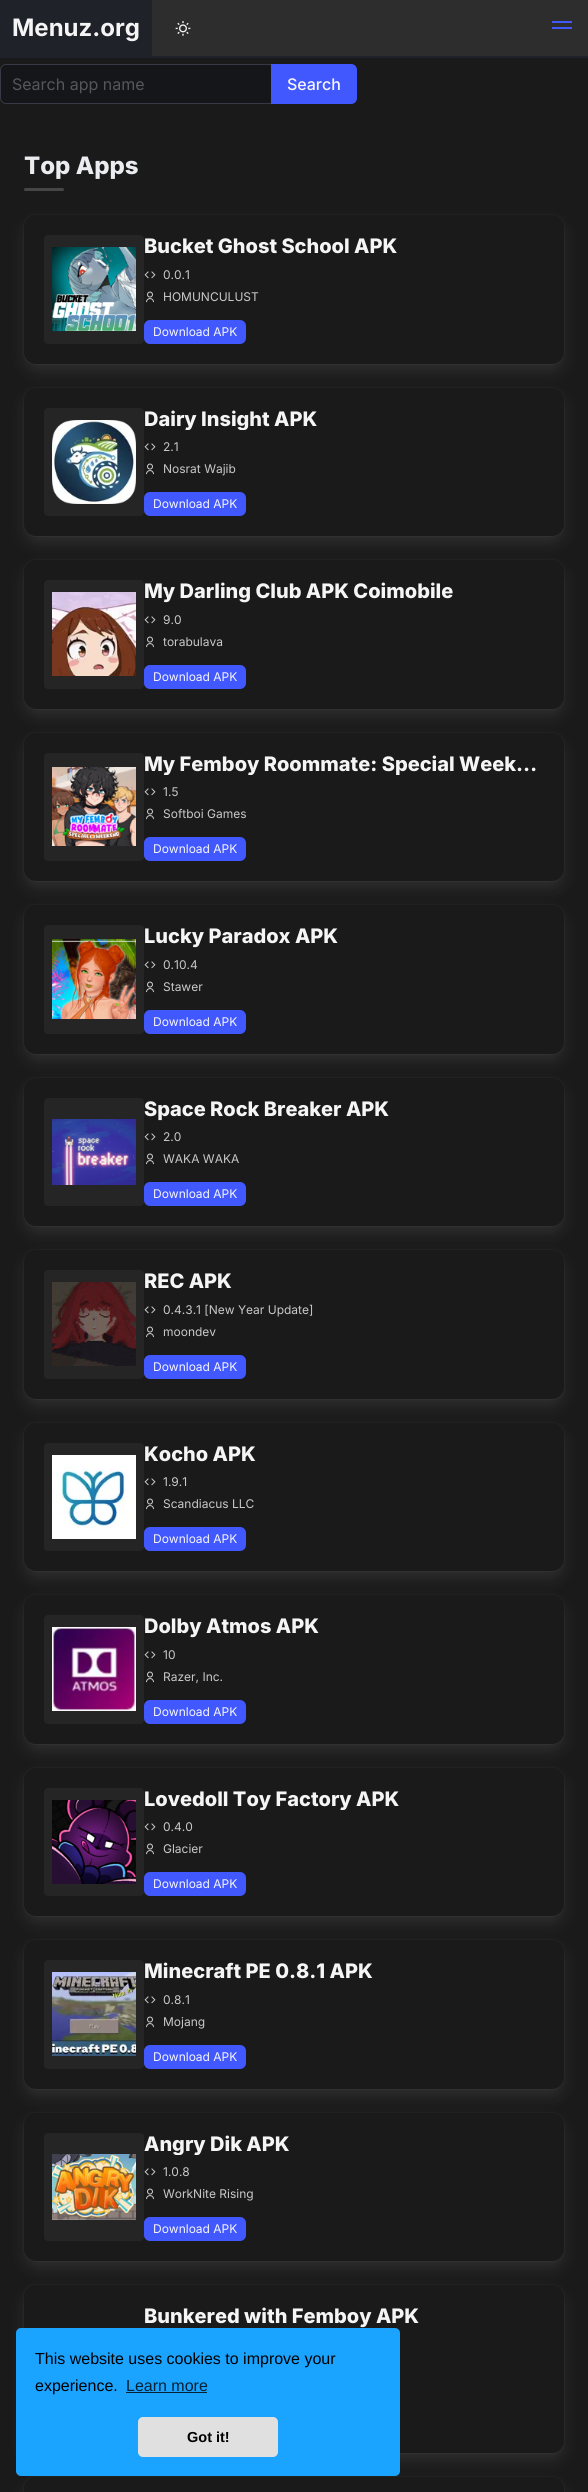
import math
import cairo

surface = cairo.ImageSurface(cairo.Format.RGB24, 588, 2492)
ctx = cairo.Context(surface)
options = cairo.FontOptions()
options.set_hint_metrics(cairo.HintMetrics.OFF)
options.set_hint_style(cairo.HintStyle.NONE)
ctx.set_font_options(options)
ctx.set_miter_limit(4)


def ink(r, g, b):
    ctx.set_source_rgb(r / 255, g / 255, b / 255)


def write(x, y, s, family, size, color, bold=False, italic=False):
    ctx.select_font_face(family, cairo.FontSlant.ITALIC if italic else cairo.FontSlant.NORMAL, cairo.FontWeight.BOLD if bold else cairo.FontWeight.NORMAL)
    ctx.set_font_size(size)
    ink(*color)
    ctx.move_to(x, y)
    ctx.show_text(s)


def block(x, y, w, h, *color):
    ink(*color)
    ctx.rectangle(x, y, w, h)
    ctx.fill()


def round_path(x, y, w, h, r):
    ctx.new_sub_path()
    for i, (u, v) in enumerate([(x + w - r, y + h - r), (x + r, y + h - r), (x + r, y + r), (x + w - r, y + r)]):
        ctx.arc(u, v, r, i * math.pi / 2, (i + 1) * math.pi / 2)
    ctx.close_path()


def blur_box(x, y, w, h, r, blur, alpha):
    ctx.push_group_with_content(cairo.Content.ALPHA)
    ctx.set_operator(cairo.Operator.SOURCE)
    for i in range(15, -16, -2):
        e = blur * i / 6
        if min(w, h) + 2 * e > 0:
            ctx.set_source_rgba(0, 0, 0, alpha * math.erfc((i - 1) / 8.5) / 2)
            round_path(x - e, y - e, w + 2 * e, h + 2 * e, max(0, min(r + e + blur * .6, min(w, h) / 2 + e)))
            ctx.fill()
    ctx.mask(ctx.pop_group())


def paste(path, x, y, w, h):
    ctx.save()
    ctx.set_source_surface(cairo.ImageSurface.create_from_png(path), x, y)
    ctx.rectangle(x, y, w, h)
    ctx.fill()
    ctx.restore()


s1 = dict(family="Inter", size=24, color=(245, 245, 245), bold=True)
s2 = dict(family="Inter", size=16, color=(85, 86, 90))
s3 = dict(family="Inter Medium", size=16, color=(245, 246, 255))
s4 = dict(family="Inter ExtraBold", size=24, color=(235, 236, 240))
s5 = dict(family="Inter ExtraBold", size=20, color=(245, 245, 245))
s6 = dict(family="Inter", size=12, color=(201, 201, 201))
s7 = dict(family="Inter", size=12, color=(245, 246, 255))
s8 = dict(family="Liberation Sans", size=16, color=(0, 0, 0))
s9 = dict(family="Liberation Sans", size=16, color=(5, 33, 51))
s10 = dict(family="Liberation Sans", size=14.5, color=(0, 0, 0), bold=True)

ink(26, 26, 26)
ctx.paint()
block(0, 56, 588, 2, 31, 34, 41)
block(152, 0, 436, 56, 45, 45, 45)
block(0, 0, 152, 56, 31, 34, 41)
write(12, 36, "Menuz.org", **s1)
paste("pic1.png", 175, 21, 16, 15)
block(552, 21, 20, 2, 66, 88, 255)
block(552, 27, 20, 2, 66, 88, 255)
ink(20, 22, 26)
ctx.new_path()
ctx.move_to(6, 64.5)
ctx.line_to(271.5, 64.5)
ctx.line_to(271.5, 103.5)
ctx.line_to(6, 103.5)
ctx.curve_to(3, 103.5, 0.5, 101, 0.5, 98)
ctx.line_to(0.5, 70)
ctx.curve_to(0.5, 67, 3, 64.5, 6, 64.5)
ctx.close_path()
ctx.fill_preserve()
ink(53, 58, 70)
ctx.set_line_width(1)
ctx.stroke()
write(12, 90, "Search app name", **s2)
ink(66, 88, 255)
ctx.new_path()
ctx.move_to(271, 64)
ctx.line_to(351, 64)
ctx.curve_to(354.5, 64, 357, 66.5, 357, 70)
ctx.line_to(357, 98)
ctx.curve_to(357, 101.5, 354.5, 104, 351, 104)
ctx.line_to(271, 104)
ctx.close_path()
ctx.fill()
write(287, 90, "Search", **s3)
write(24, 174, "Top Apps", **s4)
ink(70, 70, 70)
round_path(24, 188, 40, 3, 1.5)
ctx.fill()
round_path(23.5, 214.5, 541, 150, 12.5)
ink(31, 31, 31)
ctx.stroke()
ink(255, 255, 255)
blur_box(26, 225, 536, 145, 10, 8, 0.1)
ink(26, 26, 26)
round_path(24, 215, 540, 149, 12)
ctx.fill()
ink(37, 37, 37)
round_path(44, 235, 100, 109, 4)
ctx.fill()
paste("pic2.png", 52, 247, 84, 84)
write(144, 253, "Bucket Ghost School APK", **s5)
paste("pic3.png", 144, 271, 12, 8)
write(163, 279, "0.0.1", **s6)
paste("pic4.png", 146, 291, 8, 12)
write(163, 301, "HOMUNCULUST", **s6)
ink(66, 88, 255)
round_path(144, 320, 102, 24, 6)
ctx.fill()
write(153, 336, "Download APK", **s7)
round_path(23.5, 387.5, 541, 149, 12.5)
ink(31, 31, 31)
ctx.stroke()
ink(255, 255, 255)
blur_box(26, 398, 536, 144, 10, 8, 0.1)
ink(26, 26, 26)
round_path(24, 388, 540, 148, 12)
ctx.fill()
ink(37, 37, 37)
round_path(44, 408, 100, 108, 4)
ctx.fill()
paste("pic5.png", 52, 420, 84, 84)
ctx.save()
ctx.rectangle(144, 408, 400, 22)
ctx.clip()
write(144, 426, "Dairy Insight APK", **s5)
ctx.restore()
paste("pic3.png", 144, 443, 12, 8)
write(163, 451, "2.1", **s6)
paste("pic4.png", 146, 463, 8, 12)
write(163, 473, "Nosrat Wajib", **s6)
ink(66, 88, 255)
round_path(144, 492, 102, 24, 6)
ctx.fill()
write(153, 508, "Download APK", **s7)
round_path(23.5, 559.5, 541, 150, 12.5)
ink(31, 31, 31)
ctx.stroke()
ink(255, 255, 255)
blur_box(26, 570, 536, 145, 10, 8, 0.1)
ink(26, 26, 26)
round_path(24, 560, 540, 149, 12)
ctx.fill()
ink(37, 37, 37)
round_path(44, 580, 100, 109, 4)
ctx.fill()
paste("pic6.png", 52, 592, 84, 84)
write(144, 598, "My Darling Club APK Coimobile", **s5)
paste("pic3.png", 144, 616, 12, 8)
write(163, 624, "9.0", **s6)
paste("pic4.png", 146, 636, 8, 12)
write(163, 646, "torabulava", **s6)
ink(66, 88, 255)
round_path(144, 665, 102, 24, 6)
ctx.fill()
write(153, 681, "Download APK", **s7)
round_path(23.5, 732.5, 541, 149, 12.5)
ink(31, 31, 31)
ctx.stroke()
ink(255, 255, 255)
blur_box(26, 743, 536, 144, 10, 8, 0.1)
ink(26, 26, 26)
round_path(24, 733, 540, 148, 12)
ctx.fill()
ink(37, 37, 37)
round_path(44, 753, 100, 108, 4)
ctx.fill()
paste("pic7.png", 52, 767, 84, 79)
ctx.save()
ctx.rectangle(144, 753, 400, 22)
ctx.clip()
write(144, 771, "My Femboy Roommate: Special Week…", **s5)
ctx.restore()
paste("pic3.png", 144, 788, 12, 8)
write(163, 796, "1.5", **s6)
paste("pic4.png", 146, 808, 8, 12)
write(163, 818, "Softboi Games", **s6)
ink(66, 88, 255)
round_path(144, 837, 102, 24, 6)
ctx.fill()
write(153, 853, "Download APK", **s7)
round_path(23.5, 904.5, 541, 150, 12.5)
ink(31, 31, 31)
ctx.stroke()
ink(255, 255, 255)
blur_box(26, 915, 536, 145, 10, 8, 0.1)
ink(26, 26, 26)
round_path(24, 905, 540, 149, 12)
ctx.fill()
ink(37, 37, 37)
round_path(44, 925, 100, 109, 4)
ctx.fill()
paste("pic8.png", 52, 939, 84, 80)
write(144, 943, "Lucky Paradox APK", **s5)
paste("pic3.png", 144, 961, 12, 8)
write(163, 969, "0.10.4", **s6)
paste("pic4.png", 146, 981, 8, 12)
write(163, 991, "Stawer", **s6)
ink(66, 88, 255)
round_path(144, 1010, 102, 24, 6)
ctx.fill()
write(153, 1026, "Download APK", **s7)
round_path(23.5, 1077.5, 541, 149, 12.5)
ink(31, 31, 31)
ctx.stroke()
ink(255, 255, 255)
blur_box(26, 1088, 536, 144, 10, 8, 0.1)
ink(26, 26, 26)
round_path(24, 1078, 540, 148, 12)
ctx.fill()
ink(37, 37, 37)
round_path(44, 1098, 100, 108, 4)
ctx.fill()
paste("pic9.png", 52, 1119, 84, 66)
write(144, 1116, "Space Rock Breaker APK", **s5)
paste("pic3.png", 144, 1133, 12, 8)
write(163, 1141, "2.0", **s6)
paste("pic4.png", 146, 1153, 8, 12)
write(163, 1163, "WAKA WAKA", **s6)
ink(66, 88, 255)
round_path(144, 1182, 102, 24, 6)
ctx.fill()
write(153, 1198, "Download APK", **s7)
round_path(23.5, 1249.5, 541, 150, 12.5)
ink(31, 31, 31)
ctx.stroke()
ink(255, 255, 255)
blur_box(26, 1260, 536, 145, 10, 8, 0.1)
ink(26, 26, 26)
round_path(24, 1250, 540, 149, 12)
ctx.fill()
ink(37, 37, 37)
round_path(44, 1270, 100, 109, 4)
ctx.fill()
paste("pic10.png", 52, 1282, 84, 84)
write(144, 1288, "REC APK", **s5)
paste("pic3.png", 144, 1306, 12, 8)
write(163, 1314, "0.4.3.1 [New Year Update]", **s6)
paste("pic4.png", 146, 1326, 8, 12)
write(163, 1336, "moondev", **s6)
ink(66, 88, 255)
round_path(144, 1355, 102, 24, 6)
ctx.fill()
write(153, 1371, "Download APK", **s7)
round_path(23.5, 1422.5, 541, 149, 12.5)
ink(31, 31, 31)
ctx.stroke()
ink(255, 255, 255)
blur_box(26, 1433, 536, 144, 10, 8, 0.1)
ink(26, 26, 26)
round_path(24, 1423, 540, 148, 12)
ctx.fill()
ink(37, 37, 37)
round_path(44, 1443, 100, 108, 4)
ctx.fill()
paste("pic11.png", 52, 1455, 84, 84)
write(144, 1461, "Kocho APK", **s5)
paste("pic3.png", 144, 1478, 12, 8)
write(163, 1486, "1.9.1", **s6)
paste("pic4.png", 146, 1498, 8, 12)
write(163, 1508, "Scandiacus LLC", **s6)
ink(66, 88, 255)
round_path(144, 1527, 102, 24, 6)
ctx.fill()
write(153, 1543, "Download APK", **s7)
round_path(23.5, 1594.5, 541, 150, 12.5)
ink(31, 31, 31)
ctx.stroke()
ink(255, 255, 255)
blur_box(26, 1605, 536, 145, 10, 8, 0.1)
ink(26, 26, 26)
round_path(24, 1595, 540, 149, 12)
ctx.fill()
ink(37, 37, 37)
round_path(44, 1615, 100, 109, 4)
ctx.fill()
paste("pic12.png", 52, 1627, 84, 84)
write(144, 1633, "Dolby Atmos APK", **s5)
paste("pic3.png", 144, 1651, 12, 8)
write(163, 1659, "10", **s6)
paste("pic4.png", 146, 1671, 8, 12)
write(163, 1681, "Razer, Inc.", **s6)
ink(66, 88, 255)
round_path(144, 1700, 102, 24, 6)
ctx.fill()
write(153, 1716, "Download APK", **s7)
round_path(23.5, 1767.5, 541, 149, 12.5)
ink(31, 31, 31)
ctx.stroke()
ink(255, 255, 255)
blur_box(26, 1778, 536, 144, 10, 8, 0.1)
ink(26, 26, 26)
round_path(24, 1768, 540, 148, 12)
ctx.fill()
ink(37, 37, 37)
round_path(44, 1788, 100, 108, 4)
ctx.fill()
paste("pic13.png", 52, 1800, 84, 84)
ctx.save()
ctx.rectangle(144, 1788, 400, 22)
ctx.clip()
write(144, 1806, "Lovedoll Toy Factory APK", **s5)
ctx.restore()
paste("pic3.png", 144, 1823, 12, 8)
write(163, 1831, "0.4.0", **s6)
paste("pic4.png", 146, 1843, 8, 12)
write(163, 1853, "Glacier", **s6)
ink(66, 88, 255)
round_path(144, 1872, 102, 24, 6)
ctx.fill()
write(153, 1888, "Download APK", **s7)
round_path(23.5, 1939.5, 541, 150, 12.5)
ink(31, 31, 31)
ctx.stroke()
ink(255, 255, 255)
blur_box(26, 1950, 536, 145, 10, 8, 0.1)
ink(26, 26, 26)
round_path(24, 1940, 540, 149, 12)
ctx.fill()
ink(37, 37, 37)
round_path(44, 1960, 100, 109, 4)
ctx.fill()
paste("pic14.png", 52, 1972, 84, 84)
write(144, 1978, "Minecraft PE 0.8.1 APK", **s5)
paste("pic3.png", 144, 1996, 12, 8)
write(163, 2004, "0.8.1", **s6)
paste("pic4.png", 146, 2016, 8, 12)
write(163, 2026, "Mojang", **s6)
ink(66, 88, 255)
round_path(144, 2045, 102, 24, 6)
ctx.fill()
write(153, 2061, "Download APK", **s7)
round_path(23.5, 2112.5, 541, 149, 12.5)
ink(31, 31, 31)
ctx.stroke()
ink(255, 255, 255)
blur_box(26, 2123, 536, 144, 10, 8, 0.1)
ink(26, 26, 26)
round_path(24, 2113, 540, 148, 12)
ctx.fill()
ink(37, 37, 37)
round_path(44, 2133, 100, 108, 4)
ctx.fill()
paste("pic15.png", 52, 2154, 84, 66)
ctx.save()
ctx.rectangle(144, 2133, 400, 22)
ctx.clip()
write(144, 2151, "Angry Dik APK", **s5)
ctx.restore()
paste("pic3.png", 144, 2168, 12, 8)
write(163, 2176, "1.0.8", **s6)
paste("pic4.png", 146, 2188, 8, 12)
write(163, 2198, "WorkNite Rising", **s6)
ink(66, 88, 255)
round_path(144, 2217, 102, 24, 6)
ctx.fill()
write(153, 2233, "Download APK", **s7)
round_path(23.5, 2284.5, 541, 169, 12.5)
ink(31, 31, 31)
ctx.stroke()
ink(255, 255, 255)
blur_box(26, 2295, 536, 164, 10, 8, 0.1)
ink(26, 26, 26)
round_path(24, 2285, 540, 168, 12)
ctx.fill()
write(144, 2323, "Bunkered with Femboy APK", **s5)
round_path(23.5, 2476.5, 541, 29, 12.5)
ink(31, 31, 31)
ctx.stroke()
ink(255, 255, 255)
blur_box(26, 2487, 536, 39, 10, 8, 0.1)
ink(26, 26, 26)
round_path(24, 2477, 540, 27, 12)
ctx.fill()
ink(26, 163, 255)
round_path(16, 2328, 384, 148, 5)
ctx.fill()
write(35, 2364, "This website uses cookies to improve your", **s8)
write(35, 2391, "experience.", **s8)
write(126, 2391, "Learn more", **s9)
block(126, 2392, 81, 1, 5, 33, 51)
ink(224, 224, 224)
round_path(138, 2417, 140, 40, 5)
ctx.fill()
write(187, 2442, "Got it!", **s10)
surface.write_to_png("screenshot.png")
